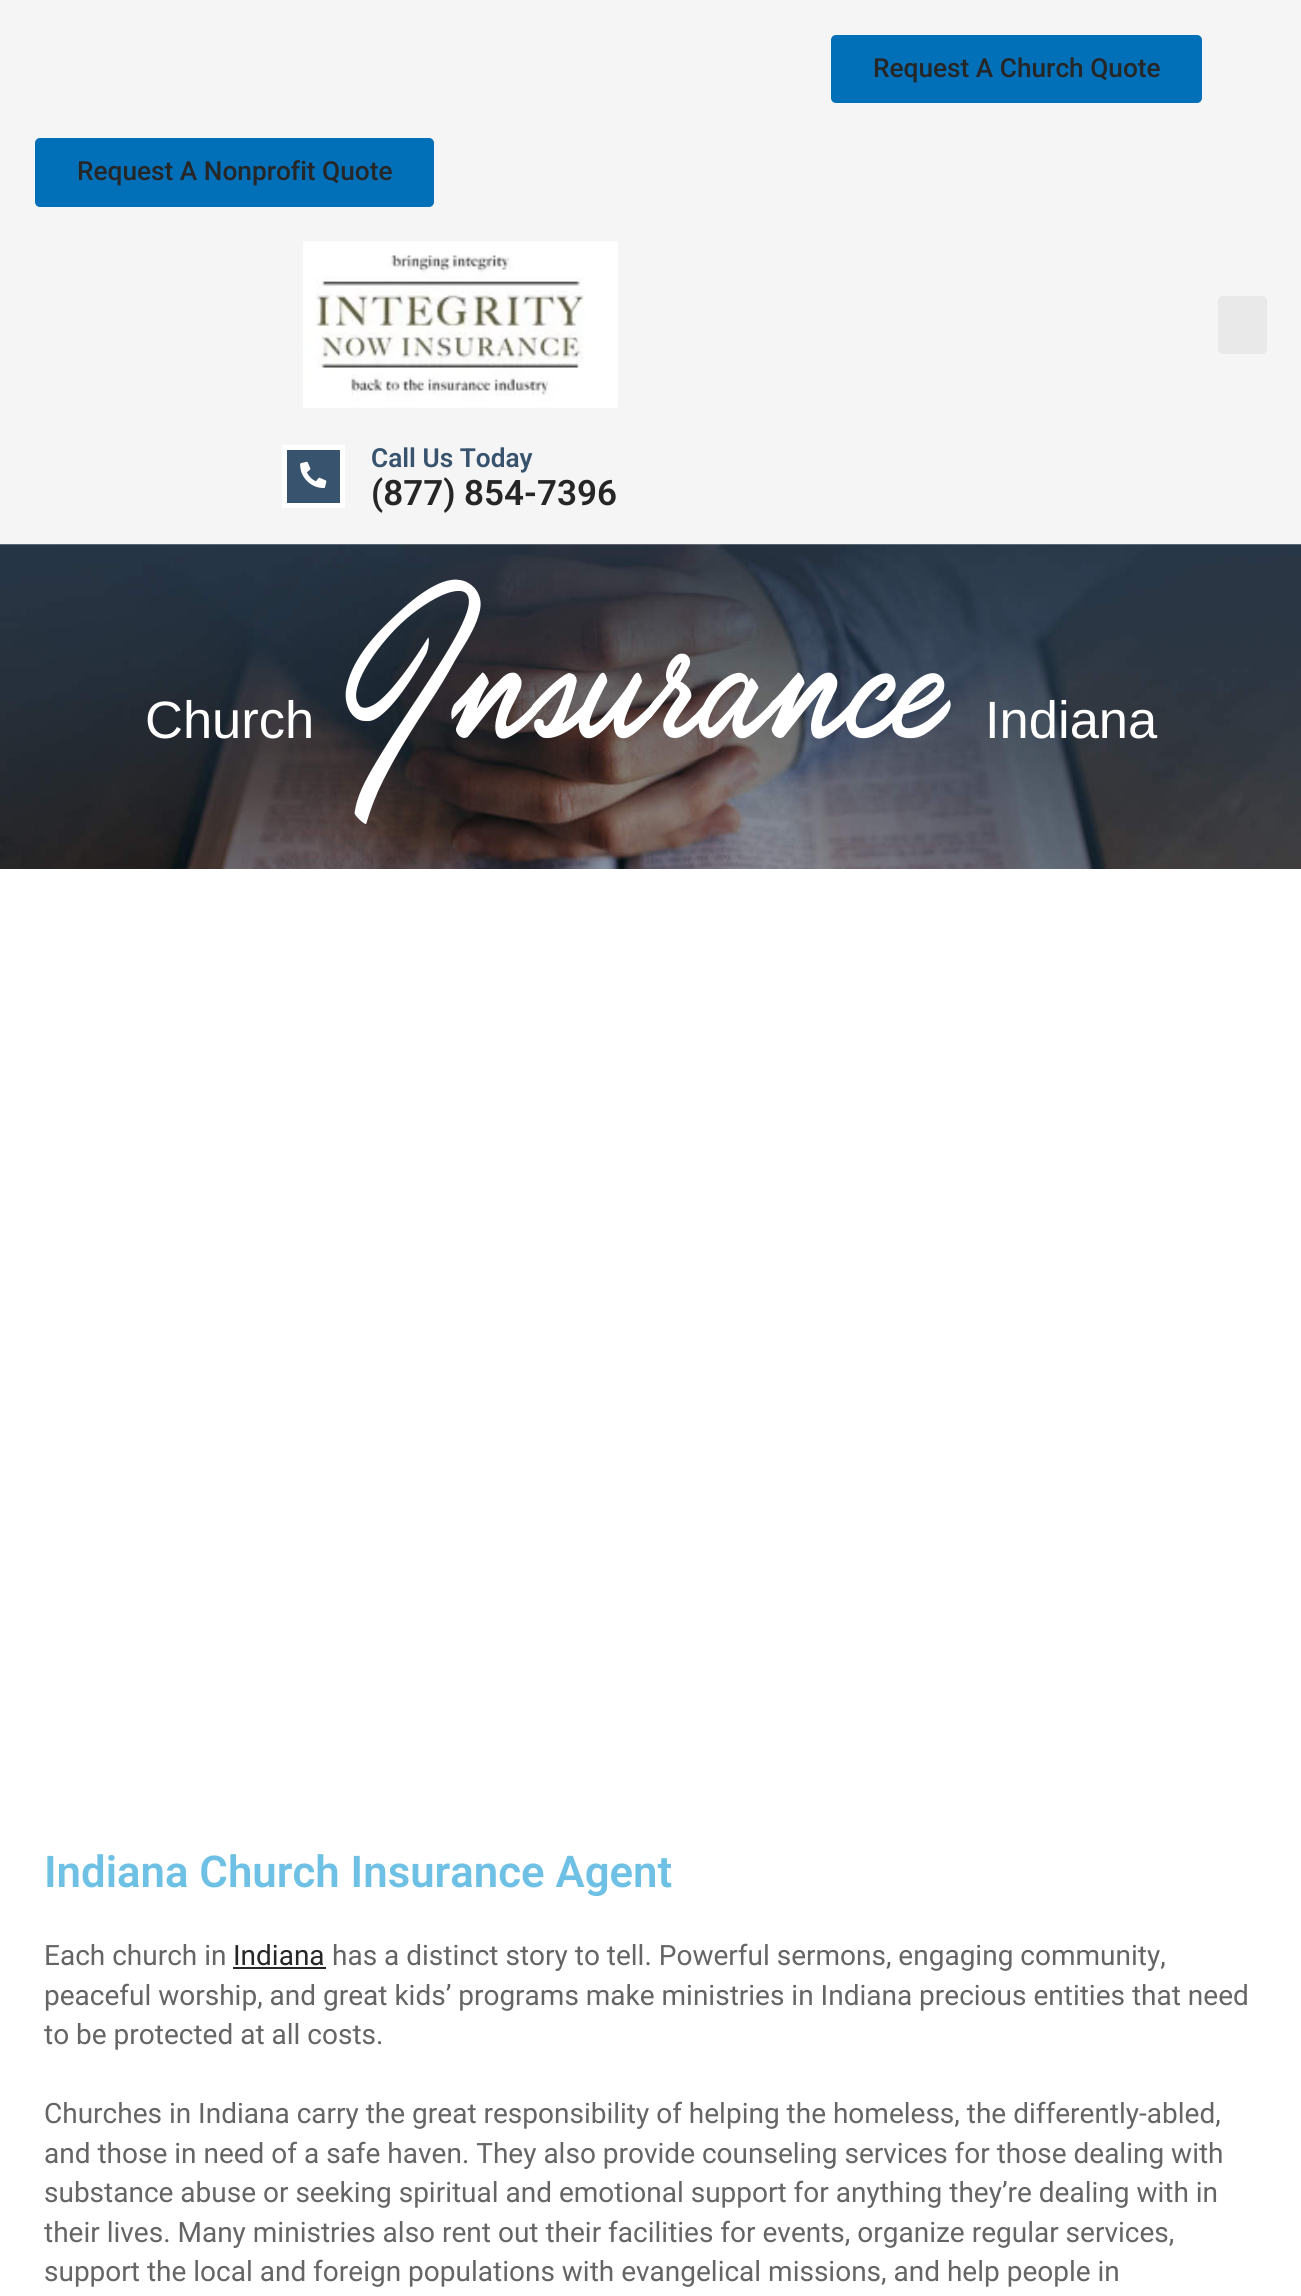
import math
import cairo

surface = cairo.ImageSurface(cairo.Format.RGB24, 1301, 2296)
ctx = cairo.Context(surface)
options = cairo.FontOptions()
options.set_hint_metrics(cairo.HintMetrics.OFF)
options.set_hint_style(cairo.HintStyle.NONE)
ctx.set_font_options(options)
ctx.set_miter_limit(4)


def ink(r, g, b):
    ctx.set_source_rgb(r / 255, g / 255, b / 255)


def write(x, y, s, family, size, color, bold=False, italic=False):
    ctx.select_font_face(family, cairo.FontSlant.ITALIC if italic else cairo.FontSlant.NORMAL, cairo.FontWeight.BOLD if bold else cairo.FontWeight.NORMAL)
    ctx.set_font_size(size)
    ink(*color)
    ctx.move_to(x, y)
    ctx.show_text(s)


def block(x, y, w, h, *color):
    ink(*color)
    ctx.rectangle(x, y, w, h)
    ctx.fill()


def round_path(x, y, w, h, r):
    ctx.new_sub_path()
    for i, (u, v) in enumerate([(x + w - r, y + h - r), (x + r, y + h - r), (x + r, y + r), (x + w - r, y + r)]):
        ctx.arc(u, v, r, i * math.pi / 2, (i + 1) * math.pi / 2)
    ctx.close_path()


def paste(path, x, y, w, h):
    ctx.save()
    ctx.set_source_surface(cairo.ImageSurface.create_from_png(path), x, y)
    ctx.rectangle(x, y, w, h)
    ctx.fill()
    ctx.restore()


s1 = dict(family="Roboto Medium", size=26.25, color=(38, 38, 38))
s2 = dict(family="Roboto SemiBold", size=26.25, color=(56, 83, 109))
s3 = dict(family="Roboto SemiBold", size=35, color=(38, 38, 38))
s4 = dict(family="Liberation Sans", size=52.5, color=(255, 255, 255))
s5 = dict(family="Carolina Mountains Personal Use", size=192.5, color=(255, 255, 255))
s6 = dict(family="Roboto SemiBold", size=43.75, color=(110, 193, 228))
s7 = dict(family="Roboto", size=28, color=(101, 101, 101))
s8 = dict(family="Roboto", size=28, color=(38, 38, 38))

ink(245, 245, 245)
ctx.paint()
ink(1, 112, 185)
round_path(831, 35, 371, 68, 5)
ctx.fill()
write(873, 77, "Request A Church Quote", **s1)
ink(1, 112, 185)
round_path(35, 138, 399, 69, 5)
ctx.fill()
write(77, 180, "Request A Nonprofit Quote", **s1)
paste("pic1.png", 303, 241, 315, 167)
ink(233, 233, 233)
round_path(1218, 296, 49, 58, 5)
ctx.fill()
ink(56, 83, 109)
ctx.rectangle(284.5, 447.5, 58, 58)
ctx.fill_preserve()
ink(255, 255, 255)
ctx.set_line_width(5)
ctx.stroke()
paste("pic2.png", 300, 461, 27, 27)
write(371, 467, "Call Us Today", **s2)
write(371, 505, "(877) 854-7396", **s3)
paste("pic3.png", 0, 544, 1301, 325)
write(145, 738, "Church", **s4)
write(328, 738, "Insurance", **s5)
write(985, 738, "Indiana", **s4)
block(0, 869, 1301, 1427, 255, 255, 255)
write(44, 1887, "Indiana Church Insurance Agent", **s6)
write(44, 1965, "Each church in", **s7)
write(233, 1965, "Indiana", **s8)
block(233, 1967, 93, 2, 38, 38, 38)
write(332, 1965, "has a distinct story to tell. Powerful sermons, engaging community,", **s7)
write(44, 2005, "peaceful worship, and great kids’ programs make ministries in Indiana precious entities that need", **s7)
write(44, 2044, "to be protected at all costs.", **s7)
write(44, 2123, "Churches in Indiana carry the great responsibility of helping the homeless, the differently-abled,", **s7)
write(44, 2163, "and those in need of a safe haven. They also provide counseling services for those dealing with", **s7)
write(44, 2202, "substance abuse or seeking spiritual and emotional support for anything they’re dealing with in", **s7)
write(44, 2242, "their lives. Many ministries also rent out their facilities for events, organize regular services,", **s7)
write(44, 2281, "support the local and foreign populations with evangelical missions, and help people in", **s7)
surface.write_to_png("screenshot.png")
